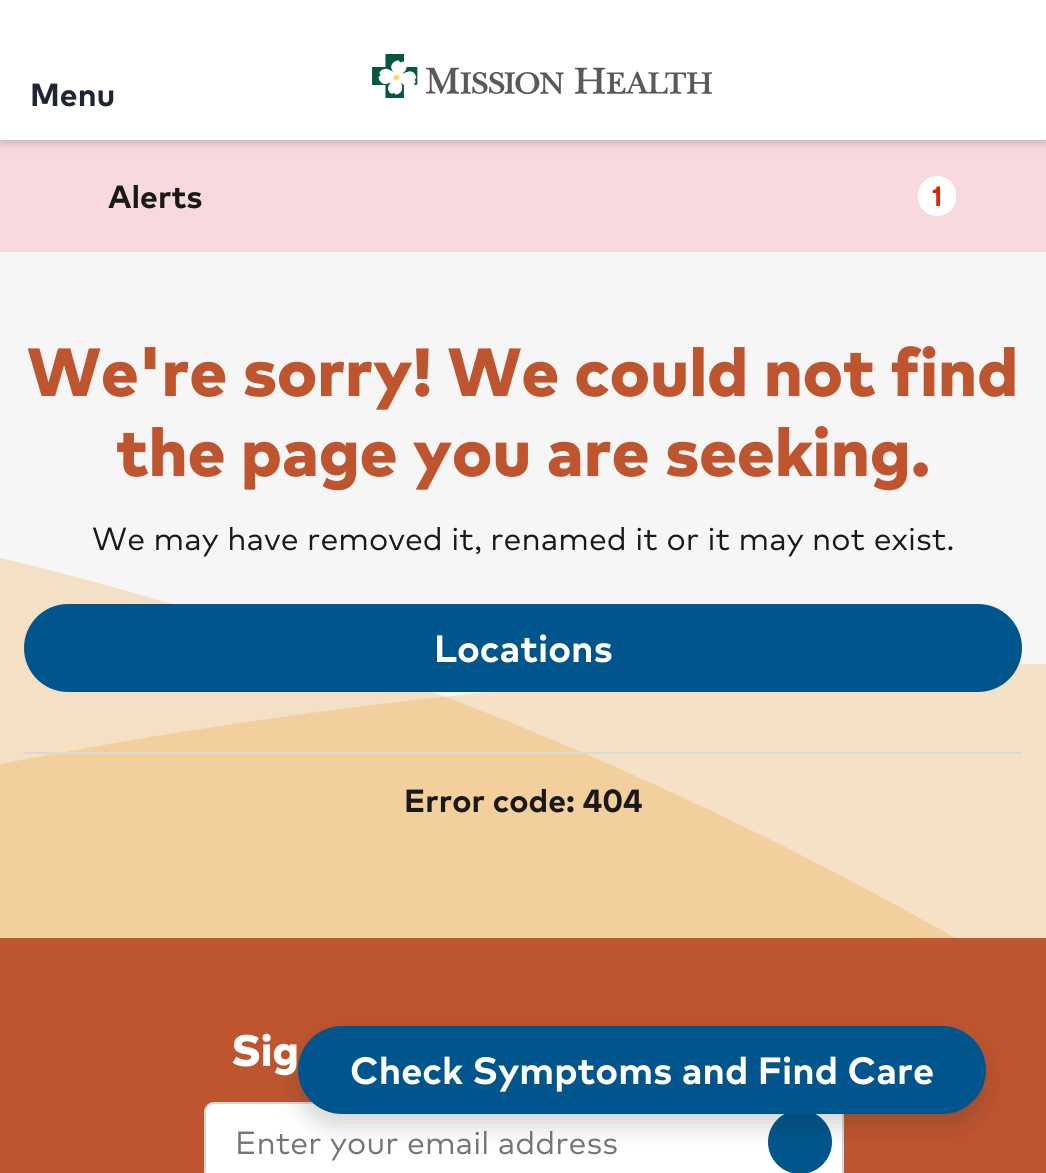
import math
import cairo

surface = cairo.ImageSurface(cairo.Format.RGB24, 1046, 1173)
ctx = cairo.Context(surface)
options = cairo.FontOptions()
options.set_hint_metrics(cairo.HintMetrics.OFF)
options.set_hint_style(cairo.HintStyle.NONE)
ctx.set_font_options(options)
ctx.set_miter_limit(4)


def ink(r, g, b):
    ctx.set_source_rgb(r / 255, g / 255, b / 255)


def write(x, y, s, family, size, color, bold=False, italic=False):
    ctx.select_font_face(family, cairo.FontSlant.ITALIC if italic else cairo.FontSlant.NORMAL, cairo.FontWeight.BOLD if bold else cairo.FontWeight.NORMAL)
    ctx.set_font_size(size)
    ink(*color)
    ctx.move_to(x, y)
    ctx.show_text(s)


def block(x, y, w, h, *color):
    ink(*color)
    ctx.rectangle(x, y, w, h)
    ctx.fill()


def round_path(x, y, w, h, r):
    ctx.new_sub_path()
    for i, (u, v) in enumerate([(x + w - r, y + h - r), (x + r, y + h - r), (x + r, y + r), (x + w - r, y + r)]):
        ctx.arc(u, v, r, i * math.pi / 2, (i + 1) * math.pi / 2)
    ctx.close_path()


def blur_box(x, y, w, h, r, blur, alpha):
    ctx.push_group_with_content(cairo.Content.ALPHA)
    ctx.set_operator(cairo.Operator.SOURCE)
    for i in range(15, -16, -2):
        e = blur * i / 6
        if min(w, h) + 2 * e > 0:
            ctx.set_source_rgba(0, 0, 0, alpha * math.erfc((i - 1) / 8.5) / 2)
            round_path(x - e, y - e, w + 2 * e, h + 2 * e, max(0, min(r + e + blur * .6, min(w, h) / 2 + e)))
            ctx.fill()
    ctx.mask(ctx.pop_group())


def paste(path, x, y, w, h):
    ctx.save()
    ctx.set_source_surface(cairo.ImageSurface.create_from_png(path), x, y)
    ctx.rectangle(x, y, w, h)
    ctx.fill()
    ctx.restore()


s1 = dict(family="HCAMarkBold", size=32, color=(31, 37, 50), bold=True)
s2 = dict(family="HCAMarkBold", size=32, color=(25, 25, 25), bold=True)
s3 = dict(family="HCAMarkBold", size=28, color=(223, 37, 0), bold=True)
s4 = dict(family="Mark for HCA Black", size=68, color=(190, 85, 46))
s5 = dict(family="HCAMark", size=32, color=(25, 25, 25))
s6 = dict(family="HCAMarkBold", size=38, color=(255, 255, 255), bold=True)
s7 = dict(family="Mark for HCA Black", size=44, color=(255, 255, 255))
s8 = dict(family="HCAMark", size=32, color=(117, 117, 117))

ink(246, 246, 246)
ctx.paint()
block(0, 140, 1046, 112, 248, 218, 222)
ink(31, 37, 50)
blur_box(0, 4, 1046, 140, 0, 4, 0.2)
block(0, 0, 1046, 140, 255, 255, 255)
write(30, 106, "Menu", **s1)
paste("pic1.png", 372, 54, 340, 44)
write(108, 208, "Alerts", **s2)
ink(255, 255, 255)
round_path(918, 176, 38, 40, 19)
ctx.fill()
write(932, 206, "1", **s3)
write(27, 396, "We're sorry! We could not find", **s4)
write(116, 476, "the page you are seeking.", **s4)
write(92, 550, "We may have removed it, renamed it or it may not exist.", **s5)
ctx.save()
ctx.rectangle(0, 252, 1046, 686)
ctx.clip()
ink(245, 225, 198)
ctx.new_path()
ctx.move_to(1046, 664)
ctx.curve_to(3934.5, 664, 6276, 2902.5, 6276, 5664)
ctx.curve_to(6276, 8425.5, 3934.5, 10664, 1046, 10664)
ctx.curve_to(-1842.5, 10664, -4184, 8425.5, -4184, 5664)
ctx.curve_to(-4184, 2902.5, -1842.5, 664, 1046, 664)
ctx.close_path()
ctx.fill()
ctx.set_source_rgba(0.929, 0.545, 0, 0.2)
ctx.new_path()
ctx.move_to(-836, 458)
ctx.curve_to(1475, 458, 3348, 2696.5, 3348, 5458)
ctx.curve_to(3348, 8219.5, 1475, 10458, -836, 10458)
ctx.curve_to(-3147, 10458, -5020, 8219.5, -5020, 5458)
ctx.curve_to(-5020, 2696.5, -3147, 458, -836, 458)
ctx.close_path()
ctx.fill()
ctx.restore()
ink(0, 85, 140)
round_path(26, 606, 994, 84, 42)
ctx.fill_preserve()
ctx.set_line_width(4)
ctx.stroke()
write(434, 662, "Locations", **s6)
block(24, 752, 998, 2, 217, 217, 214)
write(404, 812, "Error code: 404", **s2)
block(0, 938, 1046, 235, 190, 85, 46)
ink(255, 255, 255)
round_path(205, 1103, 638, 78, 9)
ctx.fill_preserve()
ink(217, 217, 214)
ctx.set_line_width(2)
ctx.stroke()
ink(0, 85, 140)
ctx.arc(800, 1142, 30, 0, 2 * math.pi)
ctx.fill_preserve()
ctx.set_line_width(4)
ctx.stroke()
ink(31, 37, 50)
blur_box(298, 1038, 688, 88, 44, 12, 0.2)
ink(0, 85, 140)
round_path(300, 1028, 684, 84, 42)
ctx.fill_preserve()
ctx.stroke()
write(350, 1084, "Check Symptoms and Find Care", **s6)
write(231, 1066, "Sig", **s7)
write(235, 1154, "Enter your email address", **s8)
surface.write_to_png("screenshot.png")
